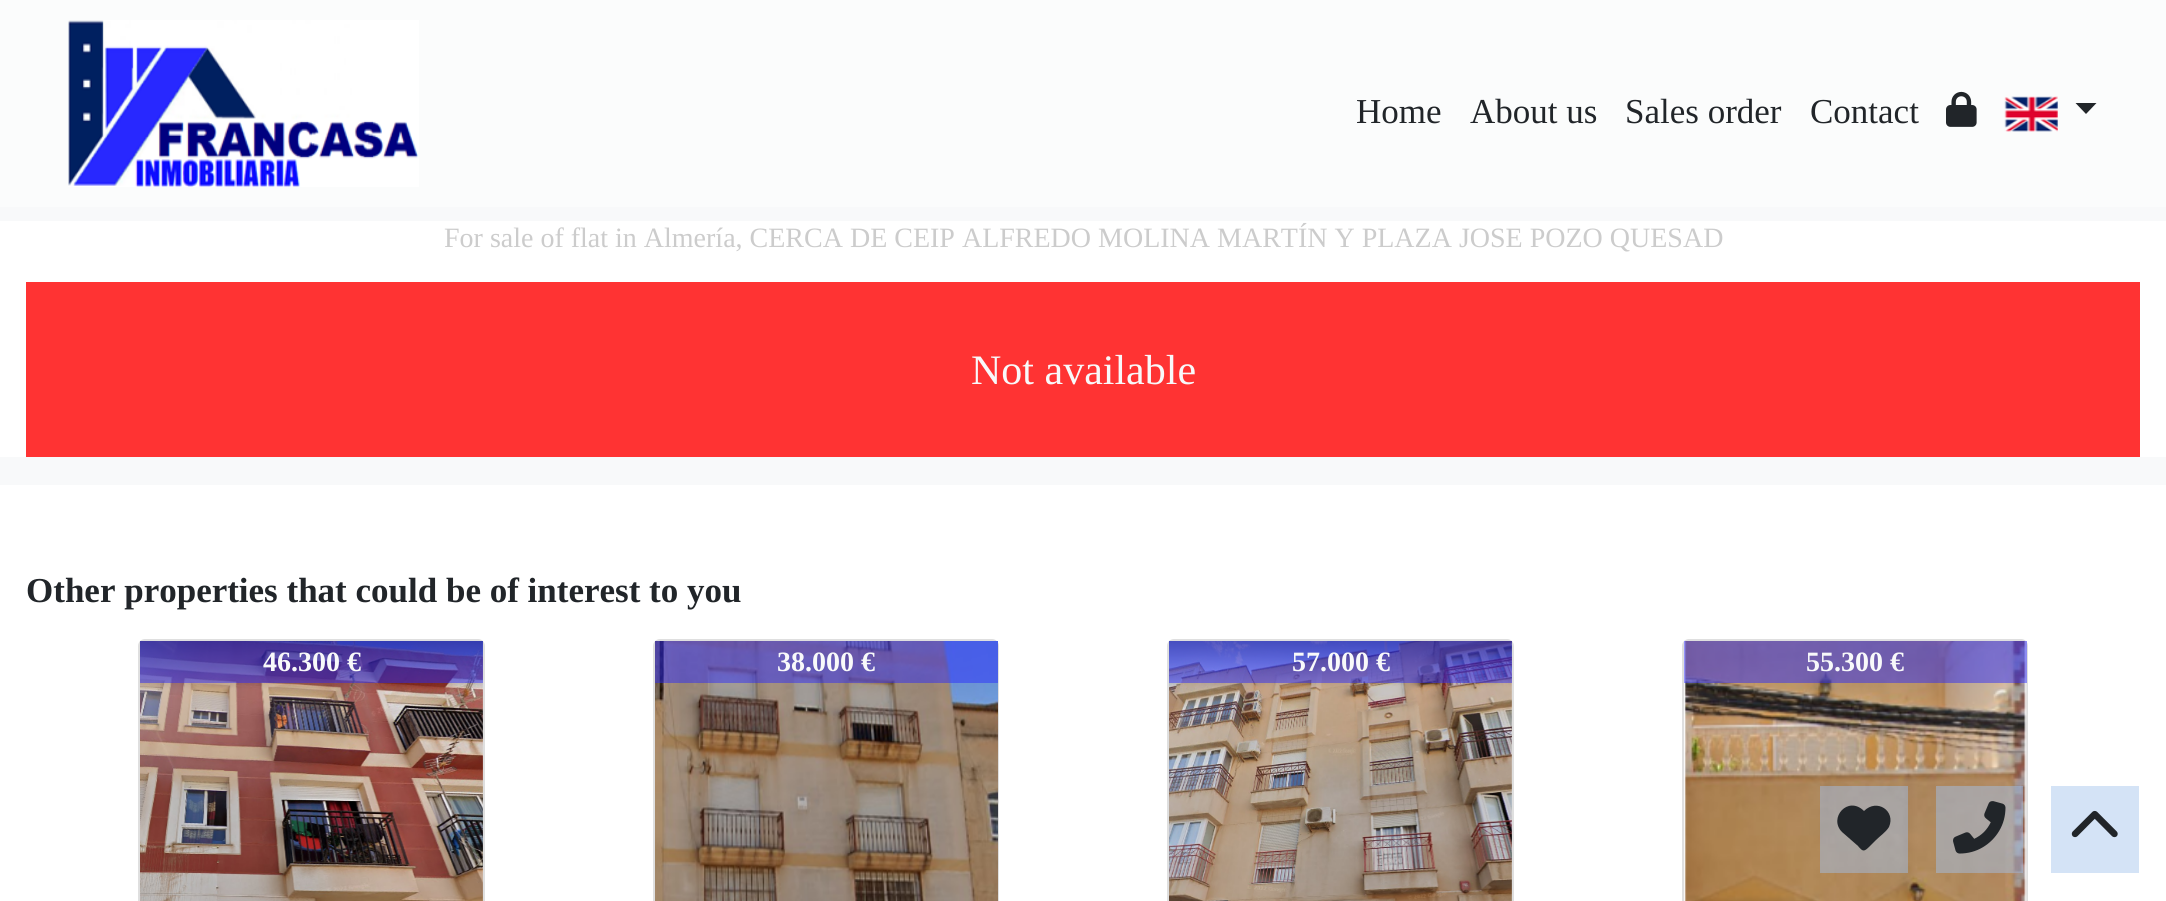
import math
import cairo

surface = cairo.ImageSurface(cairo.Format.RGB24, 2166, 901)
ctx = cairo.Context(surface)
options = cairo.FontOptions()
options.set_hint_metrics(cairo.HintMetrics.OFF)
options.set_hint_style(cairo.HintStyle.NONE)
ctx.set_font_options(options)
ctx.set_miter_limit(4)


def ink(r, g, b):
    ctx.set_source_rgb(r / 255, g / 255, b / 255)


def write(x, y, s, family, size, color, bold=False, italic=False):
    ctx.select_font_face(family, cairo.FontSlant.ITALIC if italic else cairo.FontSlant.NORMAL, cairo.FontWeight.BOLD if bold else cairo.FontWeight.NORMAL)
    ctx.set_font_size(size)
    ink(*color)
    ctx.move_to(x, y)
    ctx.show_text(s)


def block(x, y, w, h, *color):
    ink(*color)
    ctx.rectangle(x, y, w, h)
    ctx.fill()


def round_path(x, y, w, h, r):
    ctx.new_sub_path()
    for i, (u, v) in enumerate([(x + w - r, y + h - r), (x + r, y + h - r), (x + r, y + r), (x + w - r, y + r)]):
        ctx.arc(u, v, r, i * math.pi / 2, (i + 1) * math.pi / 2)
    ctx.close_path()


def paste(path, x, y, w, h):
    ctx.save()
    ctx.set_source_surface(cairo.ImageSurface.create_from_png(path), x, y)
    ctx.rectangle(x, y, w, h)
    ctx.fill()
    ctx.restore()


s1 = dict(family="Liberation Serif", size=35, color=(33, 37, 41))
s2 = dict(family="Liberation Serif", size=28, color=(204, 204, 204))
s3 = dict(family="Liberation Serif", size=42, color=(248, 249, 250))
s4 = dict(family="Liberation Serif", size=35, color=(33, 37, 41), bold=True)
s5 = dict(family="Liberation Serif", size=28, color=(248, 249, 250), bold=True)

ink(255, 255, 255)
ctx.paint()
block(0, 0, 2166, 207, 251, 252, 252)
paste("pic1.png", 68, 20, 351, 167)
write(1356, 123, "Home", **s1)
write(1470, 123, "About us", **s1)
write(1625, 123, "Sales order", **s1)
write(1810, 123, "Contact", **s1)
paste("pic2.png", 1946, 91, 31, 36)
paste("pic3.png", 2004, 96, 54, 36)
ctx.new_path()
ctx.move_to(2075.5, 103)
ctx.line_to(2096.5, 103)
ctx.line_to(2086, 114)
ctx.close_path()
ctx.fill()
block(0, 207, 2166, 278, 248, 249, 250)
block(0, 221, 2166, 236, 255, 255, 255)
write(444, 247, "For sale of flat in Almería, CERCA DE CEIP ALFREDO MOLINA MARTÍN Y PLAZA JOSE POZO QUESAD", **s2)
block(26, 282, 2114, 175, 255, 51, 51)
write(971, 384, "Not available", **s3)
write(26, 602, "Other properties that could be of interest to you", **s4)
round_path(139, 640, 345, 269, 6)
ink(223, 223, 223)
ctx.stroke()
paste("pic4.png", 140, 641, 343, 260)
ctx.set_source_rgba(0.157, 0.157, 1, 0.47)
ctx.rectangle(140, 641, 343, 42)
ctx.fill()
write(263, 671, "46.300 €", **s5)
round_path(654, 640, 344, 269, 6)
ink(223, 223, 223)
ctx.stroke()
paste("pic5.png", 655, 641, 343, 260)
ctx.set_source_rgba(0.157, 0.157, 1, 0.47)
ctx.rectangle(655, 641, 343, 42)
ctx.fill()
write(777, 671, "38.000 €", **s5)
round_path(1168, 640, 345, 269, 6)
ink(223, 223, 223)
ctx.stroke()
paste("pic6.png", 1169, 641, 343, 260)
ctx.set_source_rgba(0.157, 0.157, 1, 0.47)
ctx.rectangle(1169, 641, 343, 42)
ctx.fill()
write(1292, 671, "57.000 €", **s5)
round_path(1683, 640, 344, 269, 6)
ink(223, 223, 223)
ctx.stroke()
paste("pic7.png", 1684, 641, 343, 260)
ctx.set_source_rgba(0.157, 0.157, 1, 0.47)
ctx.rectangle(1684, 641, 343, 42)
ctx.fill()
write(1806, 671, "55.300 €", **s5)
ctx.set_source_rgba(0.639, 0.761, 0.925, 0.47)
ctx.rectangle(1820, 786, 88, 87)
ctx.fill()
ink(33, 37, 41)
ctx.new_path()
ctx.move_to(1842, 832)
ctx.line_to(1861, 849)
ctx.line_to(1842, 832)
ctx.line_to(1858, 846)
ctx.curve_to(1863, 852, 1864, 852, 1870, 846)
ctx.line_to(1876, 840)
ctx.curve_to(1880, 836, 1886, 832, 1889, 827)
ctx.curve_to(1896, 811, 1877, 798, 1864, 811)
ctx.curve_to(1848, 795, 1828, 818, 1842, 832)
ctx.close_path()
ctx.fill()
ctx.set_source_rgba(0.639, 0.761, 0.925, 0.47)
ctx.rectangle(1936, 786, 87, 87)
ctx.fill()
paste("pic8.png", 1953, 801, 53, 53)
block(2051, 786, 88, 87, 212, 227, 246)
paste("pic9.png", 2071, 810, 47, 28)
surface.write_to_png("screenshot.png")
